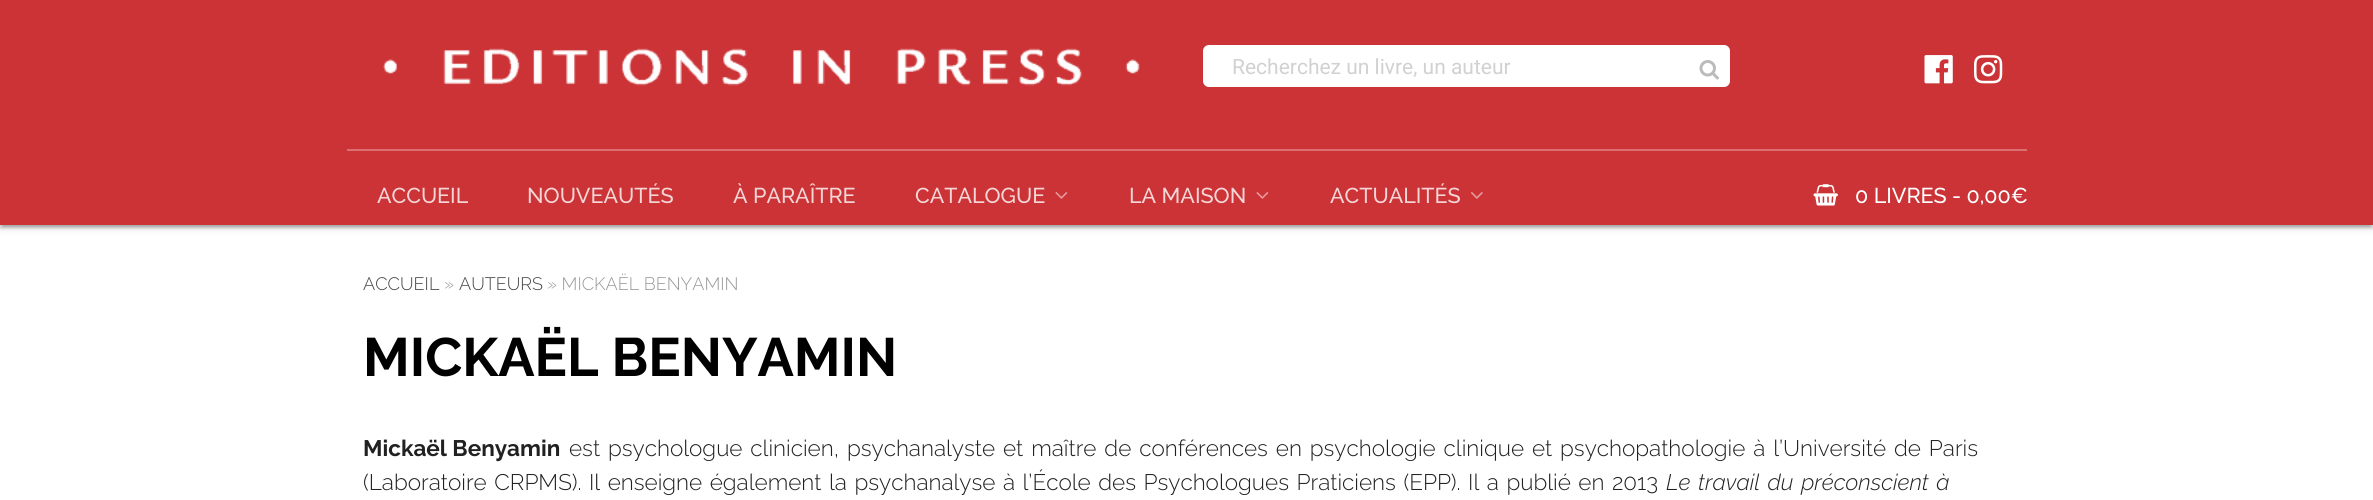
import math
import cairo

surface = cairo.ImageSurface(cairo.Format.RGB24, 2373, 500)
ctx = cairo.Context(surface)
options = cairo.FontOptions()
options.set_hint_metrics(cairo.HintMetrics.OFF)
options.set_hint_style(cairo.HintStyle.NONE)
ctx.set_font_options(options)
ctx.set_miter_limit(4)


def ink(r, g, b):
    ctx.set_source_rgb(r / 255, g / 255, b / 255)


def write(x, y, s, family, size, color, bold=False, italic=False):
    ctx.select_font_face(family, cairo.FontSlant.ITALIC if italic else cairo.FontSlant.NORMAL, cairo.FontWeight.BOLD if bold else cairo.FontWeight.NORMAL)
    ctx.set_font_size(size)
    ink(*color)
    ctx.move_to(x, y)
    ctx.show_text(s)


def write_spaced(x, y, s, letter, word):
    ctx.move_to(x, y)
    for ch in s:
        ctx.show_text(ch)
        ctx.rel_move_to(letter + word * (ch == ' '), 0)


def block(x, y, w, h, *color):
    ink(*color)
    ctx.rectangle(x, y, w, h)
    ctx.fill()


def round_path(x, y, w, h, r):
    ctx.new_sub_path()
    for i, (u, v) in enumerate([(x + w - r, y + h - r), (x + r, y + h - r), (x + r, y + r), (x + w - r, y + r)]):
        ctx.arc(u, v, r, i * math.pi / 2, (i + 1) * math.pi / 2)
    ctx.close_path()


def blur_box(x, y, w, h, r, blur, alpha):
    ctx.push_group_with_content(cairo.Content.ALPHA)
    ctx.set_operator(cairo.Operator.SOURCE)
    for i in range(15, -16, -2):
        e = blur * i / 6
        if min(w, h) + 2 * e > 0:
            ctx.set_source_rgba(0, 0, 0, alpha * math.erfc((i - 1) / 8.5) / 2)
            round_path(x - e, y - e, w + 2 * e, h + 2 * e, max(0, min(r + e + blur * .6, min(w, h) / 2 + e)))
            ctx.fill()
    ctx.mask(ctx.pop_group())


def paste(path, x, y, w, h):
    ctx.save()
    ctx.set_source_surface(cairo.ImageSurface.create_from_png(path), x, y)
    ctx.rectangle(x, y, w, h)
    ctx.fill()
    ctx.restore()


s1 = dict(family="Roboto", size=21, color=(209, 209, 209))
s2 = dict(family="Raleway Medium", size=21.5, color=(245, 214, 215))
s3 = dict(family="Raleway Medium", size=21.5, color=(255, 255, 255))
s4 = dict(family="Raleway Light", size=18, color=(68, 68, 68))
s5 = dict(family="Raleway Light", size=18, color=(153, 153, 153))
s6 = dict(family="Raleway", size=54, color=(0, 0, 0), bold=True)
s7 = dict(family="Raleway", size=22.5, color=(33, 33, 33), bold=True)

ink(255, 255, 255)
ctx.paint()
ink(0, 0, 0)
blur_box(0, 2, 2373, 225, 0, 4, 0.2)
blur_box(3, 8, 2367, 219, 0, 1, 0.12)
blur_box(0, 3, 2373, 225, 0, 1.5, 0.14)
block(0, 0, 2373, 225, 203, 51, 54)
block(347, 149, 1680, 2, 219, 112, 114)
paste("pic1.png", 383, 48, 757, 38)
ink(255, 255, 255)
round_path(1203, 45, 527, 42, 6)
ctx.fill()
write(1232, 74, "Recherchez un livre, un auteur", **s1)
paste("pic2.png", 1699, 60, 20, 20)
paste("pic3.png", 1924, 55, 29, 29)
paste("pic4.png", 1974, 55, 29, 29)
write(377, 203, "ACCUEIL", **s2)
write(527, 203, "NOUVEAUTÉS", **s2)
write(733, 203, "À PARAÎTRE", **s2)
write(915, 203, "CATALOGUE", **s2)
paste("pic5.png", 1055, 192, 13, 7)
write(1129, 203, "LA MAISON", **s2)
paste("pic5.png", 1256, 192, 13, 7)
write(1330, 203, "ACTUALITÉS", **s2)
paste("pic6.png", 1471, 192, 12, 7)
paste("pic7.png", 1813, 184, 25, 22)
write(1855, 203, "0 LIVRES - 0,00€", **s3)
write(363, 290, "ACCUEIL", **s4)
write(444, 290, "»", **s5)
write(459, 290, "AUTEURS", **s4)
write(547, 290, "» MICKAËL BENYAMIN", **s5)
write(363, 376, "MICKAËL BENYAMIN", **s6)
write(363, 456, "Mickaël Benyamin", **s7)
ctx.select_font_face("Raleway Light")
write_spaced(569, 456, "est psychologue clinicien, psychanalyste et maître de conférences en psychologie clinique et psychopathologie à l’Université de Paris", 0, 2.1)
write_spaced(363, 490, "(Laboratoire CRPMS). Il enseigne également la psychanalyse à l’École des Psychologues Praticiens (EPP). Il a publié en 2013", 0, 1.75)
ctx.select_font_face("Raleway Light", cairo.FontSlant.ITALIC)
write_spaced(1666, 490, "Le travail du préconscient à", 0, 2)
surface.write_to_png("screenshot.png")
